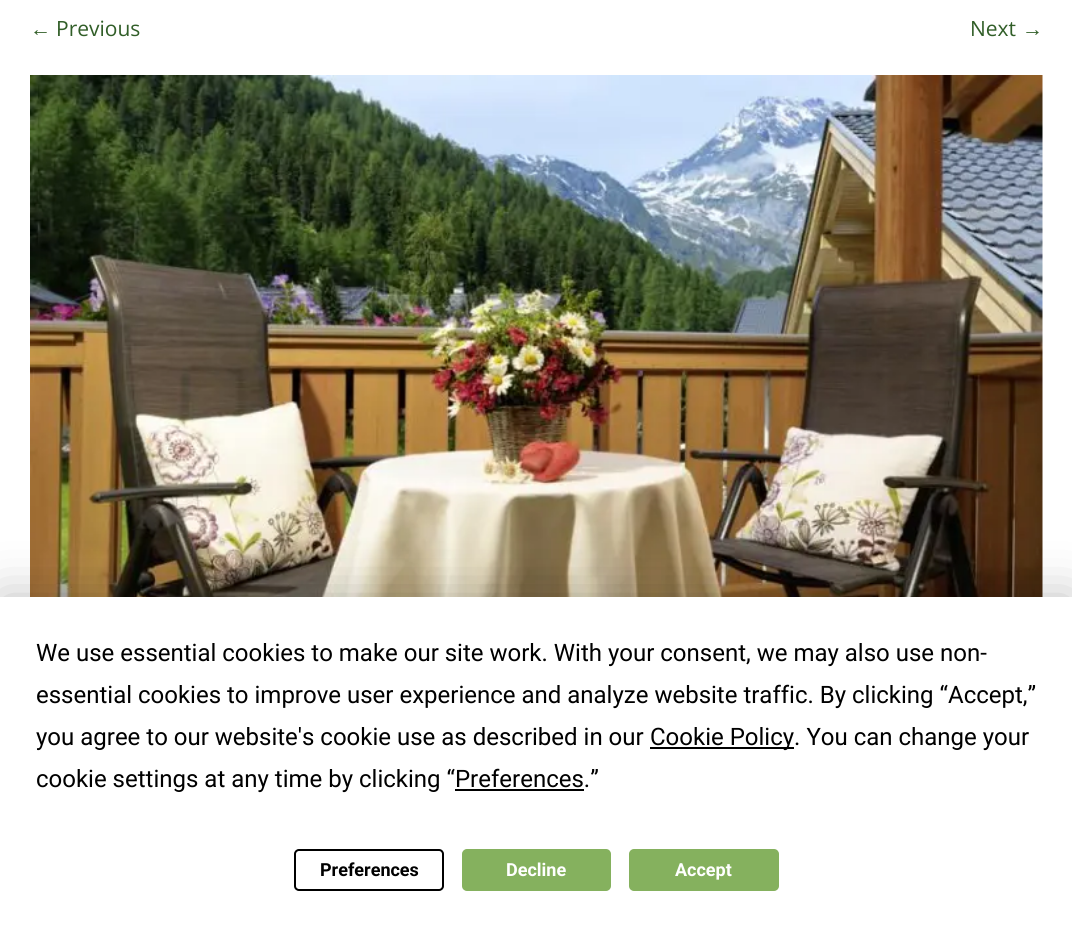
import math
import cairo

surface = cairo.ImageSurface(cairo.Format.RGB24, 1072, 926)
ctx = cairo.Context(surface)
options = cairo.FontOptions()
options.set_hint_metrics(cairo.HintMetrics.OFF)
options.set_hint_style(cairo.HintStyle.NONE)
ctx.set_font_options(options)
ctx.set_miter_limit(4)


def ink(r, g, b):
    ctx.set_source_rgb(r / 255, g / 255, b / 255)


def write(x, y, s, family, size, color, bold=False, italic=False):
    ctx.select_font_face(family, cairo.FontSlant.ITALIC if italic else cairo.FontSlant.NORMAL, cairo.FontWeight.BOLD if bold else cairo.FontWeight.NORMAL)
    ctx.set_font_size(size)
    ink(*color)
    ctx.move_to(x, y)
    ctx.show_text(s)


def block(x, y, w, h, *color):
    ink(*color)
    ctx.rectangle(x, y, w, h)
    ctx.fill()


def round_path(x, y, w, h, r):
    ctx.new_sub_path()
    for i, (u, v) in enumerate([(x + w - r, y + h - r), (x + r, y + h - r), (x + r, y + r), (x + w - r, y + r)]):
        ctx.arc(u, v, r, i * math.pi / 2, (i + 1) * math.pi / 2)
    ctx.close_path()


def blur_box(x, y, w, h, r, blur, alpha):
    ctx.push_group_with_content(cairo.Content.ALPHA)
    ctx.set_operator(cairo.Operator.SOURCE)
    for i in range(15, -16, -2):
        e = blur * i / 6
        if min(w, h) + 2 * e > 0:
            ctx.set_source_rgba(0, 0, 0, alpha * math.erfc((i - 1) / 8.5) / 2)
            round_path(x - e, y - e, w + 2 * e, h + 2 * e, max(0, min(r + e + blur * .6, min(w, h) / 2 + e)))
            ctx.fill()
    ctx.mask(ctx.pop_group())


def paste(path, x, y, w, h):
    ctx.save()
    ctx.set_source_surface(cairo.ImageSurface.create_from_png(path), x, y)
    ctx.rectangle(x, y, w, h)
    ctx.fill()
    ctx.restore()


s1 = dict(family="Liberation Sans", size=21, color=(49, 94, 40))
s2 = dict(family="Open Sans", size=21, color=(49, 94, 40))
s3 = dict(family="Roboto", size=24, color=(0, 0, 0))
s4 = dict(family="Roboto", size=18, color=(0, 0, 0), bold=True)
s5 = dict(family="Roboto", size=18, color=(255, 255, 255), bold=True)

ink(255, 255, 255)
ctx.paint()
write(30, 36, "←", **s1)
write(56, 36, "Previous", **s2)
write(970, 36, "Next", **s2)
write(1022, 36, "→", **s1)
paste("pic1.png", 30, 75, 1013, 522)
ink(0, 0, 0)
blur_box(0, 597, 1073, 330, 0, 26, 0.25)
block(0, 597, 1072, 329, 255, 255, 255)
write(36, 661, "We use essential cookies to make our site work. With your consent, we may also use non-", **s3)
write(36, 703, "essential cookies to improve user experience and analyze website traffic. By clicking “Accept,”", **s3)
write(36, 745, "you agree to our website's cookie use as described in our", **s3)
block(650, 747, 144, 2, 0, 0, 0)
write(650, 745, "Cookie Policy. You can change your", **s3)
write(36, 787, "cookie settings at any time by clicking “Preferences.”", **s3)
block(455, 789, 129, 2, 0, 0, 0)
round_path(295, 850, 148, 40, 4)
ctx.stroke()
write(320, 876, "Preferences", **s4)
ink(133, 177, 94)
round_path(463, 850, 147, 40, 4)
ctx.fill_preserve()
ctx.stroke()
write(506, 876, "Decline", **s5)
ink(133, 177, 94)
round_path(630, 850, 148, 40, 4)
ctx.fill_preserve()
ctx.stroke()
write(675, 876, "Accept", **s5)
surface.write_to_png("screenshot.png")
